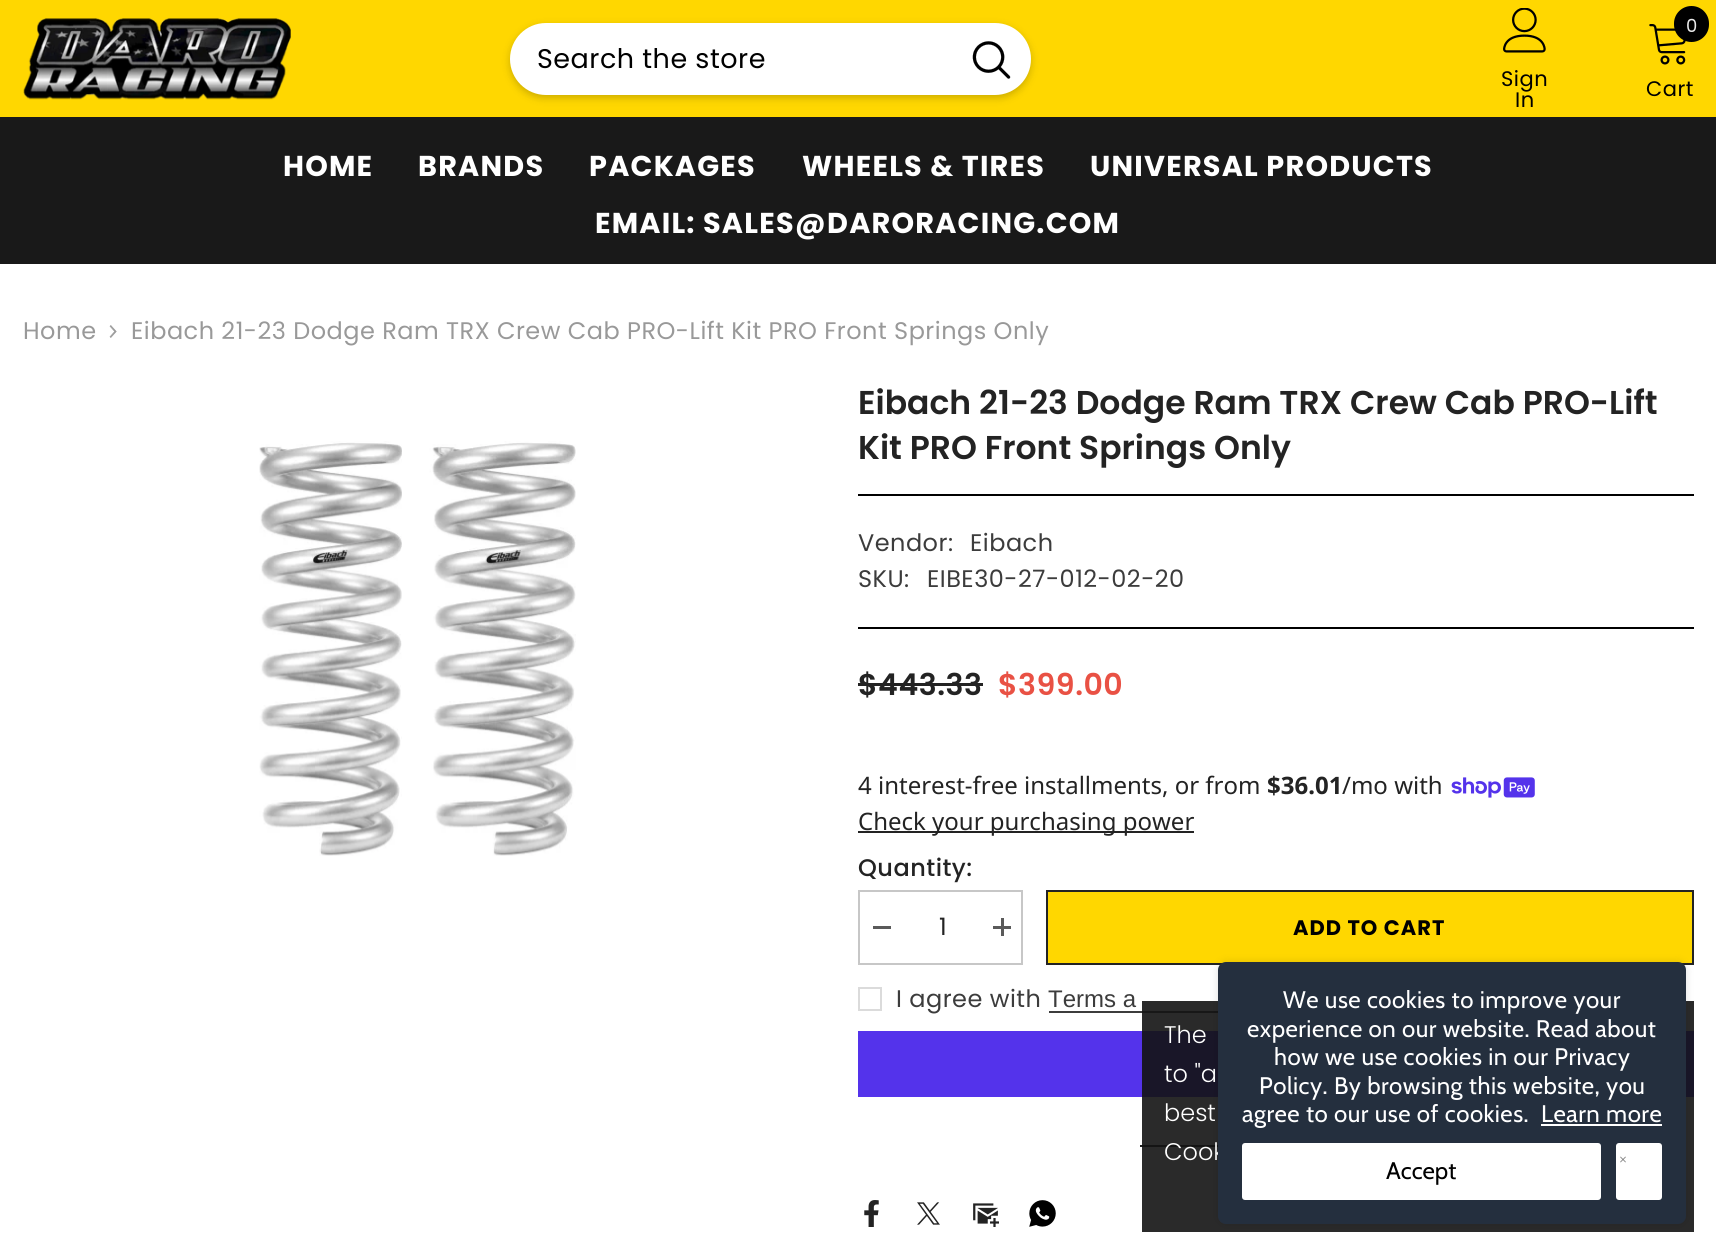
import math
import cairo

surface = cairo.ImageSurface(cairo.Format.RGB24, 1716, 1254)
ctx = cairo.Context(surface)
options = cairo.FontOptions()
options.set_hint_metrics(cairo.HintMetrics.OFF)
options.set_hint_style(cairo.HintStyle.NONE)
ctx.set_font_options(options)
ctx.set_miter_limit(4)


def ink(r, g, b):
    ctx.set_source_rgb(r / 255, g / 255, b / 255)


def write(x, y, s, family, size, color, bold=False, italic=False):
    ctx.select_font_face(family, cairo.FontSlant.ITALIC if italic else cairo.FontSlant.NORMAL, cairo.FontWeight.BOLD if bold else cairo.FontWeight.NORMAL)
    ctx.set_font_size(size)
    ink(*color)
    ctx.move_to(x, y)
    ctx.show_text(s)


def write_spaced(x, y, s, letter, word):
    ctx.move_to(x, y)
    for ch in s:
        ctx.show_text(ch)
        ctx.rel_move_to(letter + word * (ch == ' '), 0)


def block(x, y, w, h, *color):
    ink(*color)
    ctx.rectangle(x, y, w, h)
    ctx.fill()


def round_path(x, y, w, h, r):
    ctx.new_sub_path()
    for i, (u, v) in enumerate([(x + w - r, y + h - r), (x + r, y + h - r), (x + r, y + r), (x + w - r, y + r)]):
        ctx.arc(u, v, r, i * math.pi / 2, (i + 1) * math.pi / 2)
    ctx.close_path()


def blur_box(x, y, w, h, r, blur, alpha):
    ctx.push_group_with_content(cairo.Content.ALPHA)
    ctx.set_operator(cairo.Operator.SOURCE)
    for i in range(15, -16, -2):
        e = blur * i / 6
        if min(w, h) + 2 * e > 0:
            ctx.set_source_rgba(0, 0, 0, alpha * math.erfc((i - 1) / 8.5) / 2)
            round_path(x - e, y - e, w + 2 * e, h + 2 * e, max(0, min(r + e + blur * .6, min(w, h) / 2 + e)))
            ctx.fill()
    ctx.mask(ctx.pop_group())


def paste(path, x, y, w, h):
    ctx.save()
    ctx.set_source_surface(cairo.ImageSurface.create_from_png(path), x, y)
    ctx.rectangle(x, y, w, h)
    ctx.fill()
    ctx.restore()


s1 = dict(family="Poppins", size=18, color=(235, 235, 235))
s2 = dict(family="Poppins SemiBold", size=33, color=(35, 35, 35))
s3 = dict(family="Noto Sans", size=24, color=(35, 35, 35))
s4 = dict(family="Noto Sans", size=24, color=(35, 35, 35), bold=True)
s5 = dict(family="Liberation Sans", size=24, color=(60, 60, 60))
s6 = dict(family="Poppins Light", size=24, color=(255, 255, 255))
s7 = dict(family="Cabin", size=24, color=(0, 0, 0))

ink(255, 255, 255)
ctx.paint()
block(0, 0, 1716, 117, 255, 215, 0)
paste("pic1.png", 23, 18, 268, 82)
ink(0, 0, 0)
blur_box(510, 26, 521, 72, 36, 4, 0.2)
ink(255, 255, 255)
round_path(510, 23, 521, 72, 36)
ctx.fill()
ctx.select_font_face("Poppins")
ctx.set_font_size(27)
ink(0, 0, 0)
write_spaced(537, 68, "Search the store", 0.5, 0)
paste("pic2.png", 972, 41, 39, 38)
paste("pic3.png", 1649, 24, 37, 41)
round_path(1674, 6, 35, 36, 17.5)
ctx.fill()
write(1686, 32, "0", **s1)
ctx.set_font_size(21)
ink(0, 0, 0)
write_spaced(1646, 96, "Cart", 0.5, 0)
paste("pic4.png", 1503, 8, 43, 45)
write_spaced(1501, 86, "Sign", 0.5, 0)
write_spaced(1515, 107, "In", 0.5, 0)
block(0, 117, 1716, 147, 25, 25, 25)
ctx.select_font_face("Poppins", cairo.FontSlant.NORMAL, cairo.FontWeight.BOLD)
ctx.set_font_size(28.75)
ink(255, 255, 255)
write_spaced(283, 176, "HOME", 1.2, 0)
write_spaced(418, 176, "BRANDS", 1.2, 0)
write_spaced(589, 176, "PACKAGES", 1.2, 0)
write_spaced(802, 176, "WHEELS & TIRES", 1.2, 0)
write_spaced(1090, 176, "UNIVERSAL PRODUCTS", 1.2, 0)
write_spaced(595, 233, "EMAIL: SALES@DARORACING.COM", 1.2, 0)
ctx.select_font_face("Poppins")
ctx.set_font_size(24)
ink(153, 153, 153)
write_spaced(23, 339, "Home", 0.48, 0)
paste("pic5.png", 109, 325, 8, 13)
write_spaced(131, 339, "Eibach 21-23 Dodge Ram TRX Crew Cab PRO-Lift Kit PRO Front Springs Only", 0.48, 0)
paste("pic6.png", 259, 441, 317, 415)
write(858, 414, "Eibach 21-23 Dodge Ram TRX Crew Cab PRO-Lift", **s2)
write(858, 459, "Kit PRO Front Springs Only", **s2)
block(858, 494, 836, 2, 0, 0, 0)
block(858, 627, 836, 2, 0, 0, 0)
ctx.select_font_face("Poppins")
ctx.set_font_size(24)
ink(60, 60, 60)
write_spaced(858, 551, "Vendor:", 0.48, 0)
write_spaced(970, 551, "Eibach", 0.48, 0)
write_spaced(858, 587, "SKU:", 0.48, 0)
write_spaced(927, 587, "EIBE30-27-012-02-20", 0.48, 0)
ctx.select_font_face("Poppins SemiBold")
ctx.set_font_size(30)
ink(35, 35, 35)
write_spaced(858, 695, "$443.33", 0.5, 0)
block(858, 683, 125, 3, 35, 35, 35)
ink(233, 81, 68)
write_spaced(998, 695, "$399.00", 0.5, 0)
write(858, 794, "4 interest-free installments, or from", **s3)
write(1267, 794, "$36.01", **s4)
write(1342, 794, "/mo with", **s3)
paste("pic7.png", 1451, 777, 84, 21)
block(858, 831, 336, 2, 35, 35, 35)
write(858, 830, "Check your purchasing power", **s3)
ctx.select_font_face("Poppins Medium")
write_spaced(858, 876, "Quantity:", 0.48, 0)
ctx.rectangle(859, 891, 163, 73)
ink(199, 199, 199)
ctx.stroke()
block(873, 926, 18, 3, 90, 90, 90)
ctx.select_font_face("Poppins")
ink(35, 35, 35)
write_spaced(939, 935, "1", 0.48, 0)
block(993, 926, 18, 3, 90, 90, 90)
block(1001, 918, 3, 18, 90, 90, 90)
ink(255, 215, 0)
ctx.rectangle(1047, 891, 646, 73)
ctx.fill_preserve()
ink(35, 35, 35)
ctx.stroke()
ctx.select_font_face("Poppins", cairo.FontSlant.NORMAL, cairo.FontWeight.BOLD)
ctx.set_font_size(21)
ink(0, 0, 0)
write_spaced(1293, 935, "ADD TO CART", 1, 0)
ctx.rectangle(859, 988, 22, 22)
ink(219, 219, 219)
ctx.stroke()
ctx.select_font_face("Poppins")
ctx.set_font_size(24)
ink(60, 60, 60)
write_spaced(896, 1007, "I agree with", 0.48, 0)
write(1048, 1007, "Terms a", **s5)
block(1049, 1011, 169, 2, 60, 60, 60)
block(858, 1031, 836, 66, 84, 51, 235)
block(1140, 1145, 78, 2, 35, 35, 35)
paste("pic8.png", 864, 1200, 15, 27)
paste("pic9.png", 917, 1202, 23, 23)
paste("pic10.png", 973, 1203, 26, 24)
paste("pic11.png", 1029, 1200, 27, 27)
ctx.set_source_rgba(0.078, 0.078, 0.078, 0.9)
ctx.rectangle(1142, 1001, 552, 231)
ctx.fill()
write(1164, 1043, "The", **s6)
write(1164, 1082, "to \"a", **s6)
write(1164, 1121, "best", **s6)
write(1164, 1160, "Cook", **s6)
ink(36, 47, 62)
round_path(1218, 962, 468, 262, 8)
ctx.fill()
ctx.save()
ctx.set_fill_rule(cairo.FillRule.EVEN_ODD)
ctx.new_path()
ctx.move_to(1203, 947)
ctx.line_to(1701, 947)
ctx.line_to(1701, 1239)
ctx.line_to(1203, 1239)
ctx.close_path()
ctx.move_to(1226, 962)
ctx.line_to(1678, 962)
ctx.curve_to(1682.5, 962, 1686, 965.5, 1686, 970)
ctx.line_to(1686, 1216)
ctx.curve_to(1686, 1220.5, 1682.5, 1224, 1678, 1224)
ctx.line_to(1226, 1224)
ctx.curve_to(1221.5, 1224, 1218, 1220.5, 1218, 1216)
ctx.line_to(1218, 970)
ctx.curve_to(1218, 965.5, 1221.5, 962, 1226, 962)
ctx.close_path()
ctx.clip()
ink(0, 0, 0)
blur_box(1218, 962, 468, 262, 8, 4.5, 0.12)
ctx.restore()
ctx.select_font_face("Cabin")
ink(255, 255, 255)
write_spaced(1283, 1008, "We use cookies to improve your", 0.48, 0)
write_spaced(1247, 1037, "experience on our website. Read about", 0.48, 0)
write_spaced(1274, 1065, "how we use cookies in our Privacy", 0.48, 0)
write_spaced(1259, 1094, "Policy. By browsing this website, you", 0.48, 0)
write_spaced(1242, 1122, "agree to our use of cookies.", 0.48, 0)
write_spaced(1541, 1122, "Learn more", 0.48, 0)
block(1541, 1124, 121, 2, 255, 255, 255)
round_path(1242, 1143, 359, 57, 3)
ctx.fill()
write(1386, 1179, "Accept", **s7)
ink(255, 255, 255)
round_path(1616, 1143, 46, 57, 3)
ctx.fill()
paste("pic12.png", 1620, 1156, 6, 7)
surface.write_to_png("screenshot.png")
